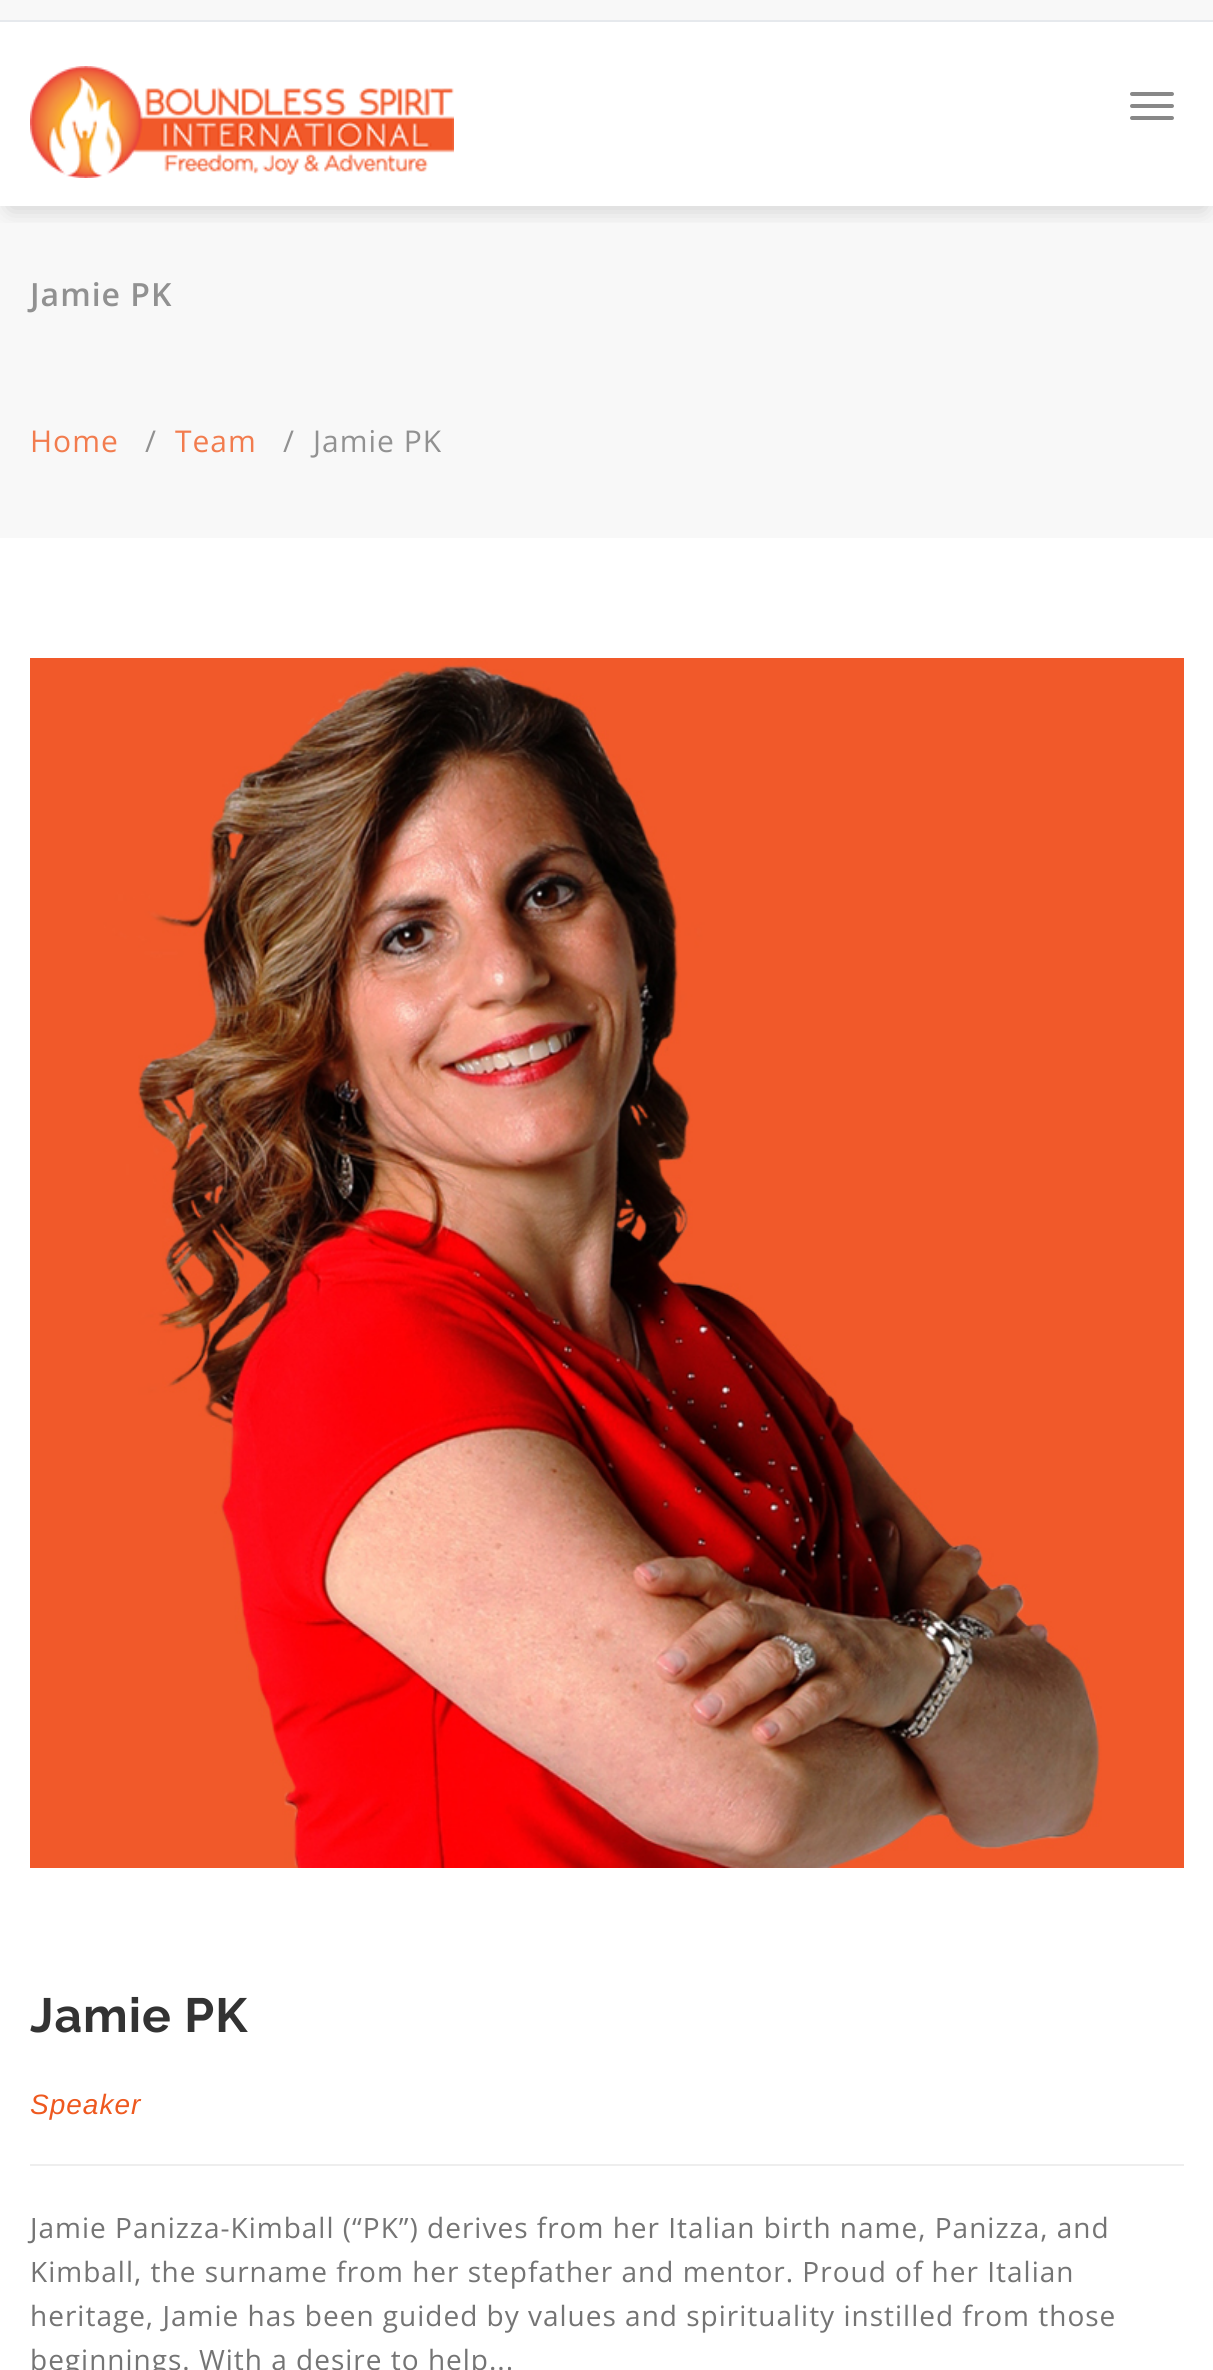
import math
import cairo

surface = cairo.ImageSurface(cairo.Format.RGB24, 1213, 2370)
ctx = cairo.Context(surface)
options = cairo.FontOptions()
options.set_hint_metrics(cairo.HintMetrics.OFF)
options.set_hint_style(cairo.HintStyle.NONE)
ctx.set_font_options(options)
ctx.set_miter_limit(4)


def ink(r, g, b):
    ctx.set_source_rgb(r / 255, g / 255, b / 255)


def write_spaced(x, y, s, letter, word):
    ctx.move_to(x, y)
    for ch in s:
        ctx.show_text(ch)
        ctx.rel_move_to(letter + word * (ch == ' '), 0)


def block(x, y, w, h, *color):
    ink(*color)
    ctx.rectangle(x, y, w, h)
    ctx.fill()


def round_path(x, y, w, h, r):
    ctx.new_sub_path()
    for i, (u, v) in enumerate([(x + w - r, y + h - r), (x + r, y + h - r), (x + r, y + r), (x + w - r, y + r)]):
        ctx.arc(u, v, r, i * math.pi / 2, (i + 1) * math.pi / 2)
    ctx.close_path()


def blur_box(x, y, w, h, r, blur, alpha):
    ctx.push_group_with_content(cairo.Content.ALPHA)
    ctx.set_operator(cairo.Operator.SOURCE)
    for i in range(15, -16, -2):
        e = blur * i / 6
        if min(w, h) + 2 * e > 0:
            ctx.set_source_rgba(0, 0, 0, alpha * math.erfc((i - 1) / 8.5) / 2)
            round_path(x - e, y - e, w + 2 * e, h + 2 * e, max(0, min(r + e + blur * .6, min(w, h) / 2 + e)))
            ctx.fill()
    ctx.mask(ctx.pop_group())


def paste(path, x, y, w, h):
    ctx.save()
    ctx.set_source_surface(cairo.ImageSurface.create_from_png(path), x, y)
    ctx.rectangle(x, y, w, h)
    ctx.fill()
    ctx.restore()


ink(255, 255, 255)
ctx.paint()
block(0, 0, 1213, 20, 248, 248, 248)
block(0, 20, 1213, 2, 230, 233, 237)
block(0, 206, 1213, 332, 248, 248, 248)
ctx.save()
ctx.rectangle(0, 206, 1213, 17)
ctx.clip()
ink(0, 0, 0)
blur_box(10, 44, 1194, 164, 0, 12, 0.18)
ctx.restore()
paste("pic1.png", 30, 66, 424, 112)
ink(136, 136, 136)
round_path(1130, 92, 44, 4, 2)
ctx.fill()
round_path(1130, 104, 44, 4, 2)
ctx.fill()
round_path(1130, 116, 44, 4, 2)
ctx.fill()
ctx.select_font_face("Open Sans SemiBold")
ctx.set_font_size(32)
ink(145, 145, 145)
write_spaced(30, 306, "Jamie PK", 1, 0)
ctx.select_font_face("Open Sans")
ctx.set_font_size(30)
ink(242, 124, 78)
write_spaced(30, 452, "Home", 1, 0)
ink(145, 145, 145)
write_spaced(145, 452, "/", 1, 0)
ink(242, 124, 78)
write_spaced(175, 452, "Team", 1, 0)
ink(145, 145, 145)
write_spaced(283, 452, "/", 1, 0)
write_spaced(313, 452, "Jamie PK", 1, 0)
paste("pic2.png", 30, 658, 1154, 1210)
ctx.select_font_face("Raleway", cairo.FontSlant.NORMAL, cairo.FontWeight.BOLD)
ctx.set_font_size(48)
ink(51, 51, 51)
write_spaced(30, 2032, "Jamie PK", 1, 0)
ctx.select_font_face("Liberation Sans", cairo.FontSlant.ITALIC)
ctx.set_font_size(28)
ink(238, 89, 31)
write_spaced(30, 2114, "Speaker", 1, 0)
block(30, 2164, 1154, 2, 238, 238, 238)
ctx.select_font_face("Open Sans")
ink(116, 116, 116)
write_spaced(30, 2238, "Jamie Panizza-Kimball (“PK”) derives from her Italian birth name, Panizza, and", 1, 0)
write_spaced(30, 2282, "Kimball, the surname from her stepfather and mentor. Proud of her Italian", 1, 0)
write_spaced(30, 2326, "heritage, Jamie has been guided by values and spirituality instilled from those", 1, 0)
write_spaced(30, 2370, "beginnings. With a desire to help...", 1, 0)
surface.write_to_png("screenshot.png")
